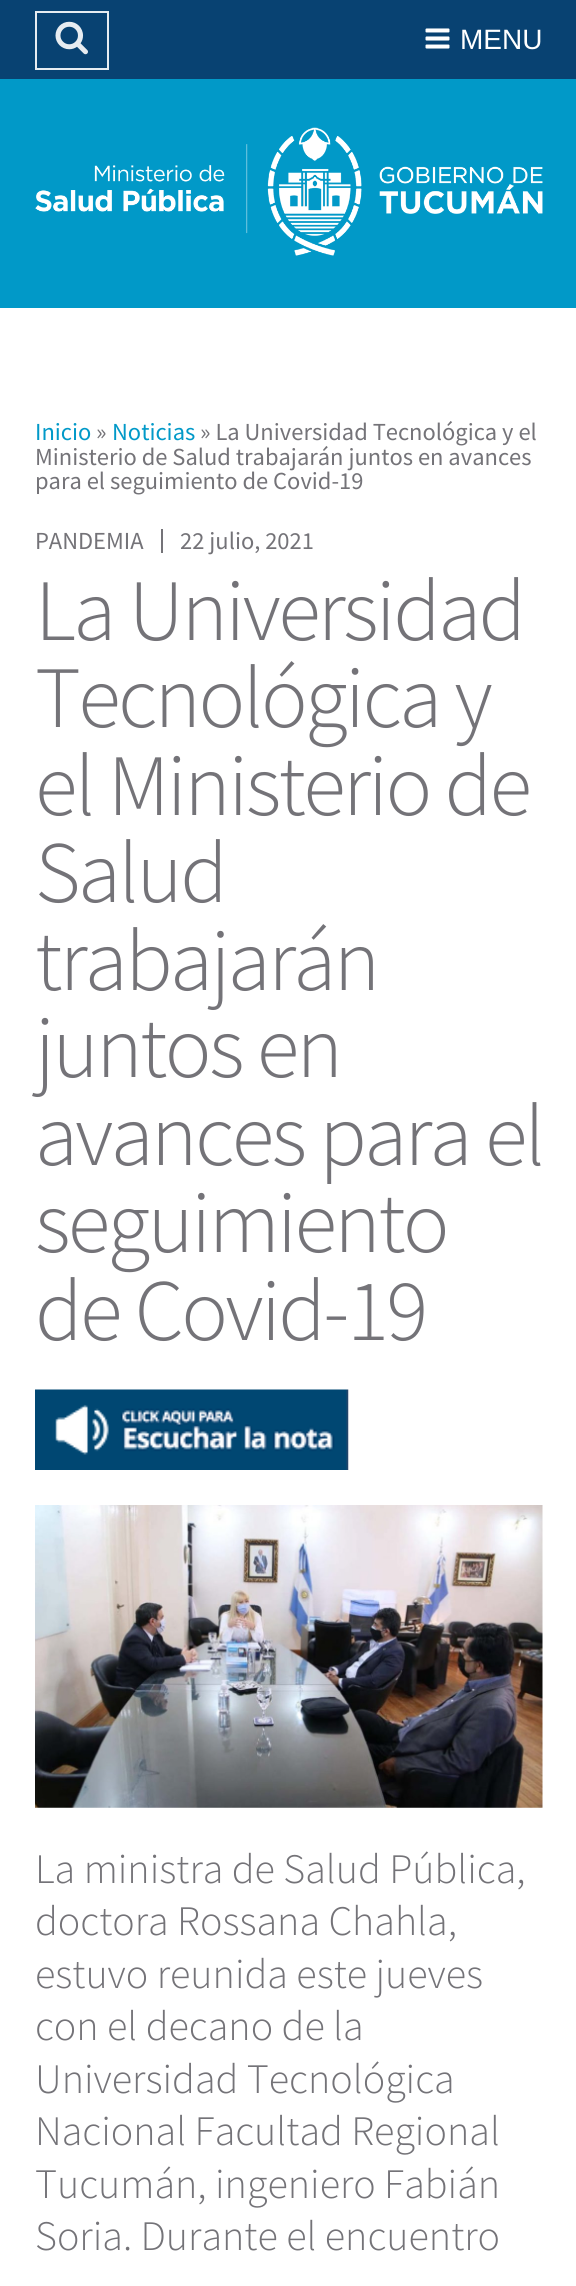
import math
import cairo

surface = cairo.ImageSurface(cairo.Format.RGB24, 576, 2286)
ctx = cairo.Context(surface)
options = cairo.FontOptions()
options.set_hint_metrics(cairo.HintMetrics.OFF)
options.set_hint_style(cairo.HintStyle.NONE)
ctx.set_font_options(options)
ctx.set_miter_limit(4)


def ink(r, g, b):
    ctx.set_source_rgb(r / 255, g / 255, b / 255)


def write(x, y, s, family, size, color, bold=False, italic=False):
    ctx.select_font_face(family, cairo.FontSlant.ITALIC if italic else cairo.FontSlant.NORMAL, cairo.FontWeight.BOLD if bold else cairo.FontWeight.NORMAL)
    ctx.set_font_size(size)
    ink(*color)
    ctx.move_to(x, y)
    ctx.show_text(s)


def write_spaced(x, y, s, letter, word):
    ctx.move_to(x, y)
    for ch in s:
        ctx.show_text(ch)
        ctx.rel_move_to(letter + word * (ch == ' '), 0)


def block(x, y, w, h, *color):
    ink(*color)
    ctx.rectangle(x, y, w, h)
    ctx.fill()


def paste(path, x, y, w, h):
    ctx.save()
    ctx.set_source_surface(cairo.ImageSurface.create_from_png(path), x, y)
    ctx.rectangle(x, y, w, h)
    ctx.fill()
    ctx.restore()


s1 = dict(family="Liberation Sans", size=28, color=(255, 255, 255))
s2 = dict(family="Source Sans Pro", size=24.5, color=(1, 153, 200))
s3 = dict(family="Source Sans Pro", size=24.5, color=(116, 115, 120))
s4 = dict(family="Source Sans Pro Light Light", size=42, color=(116, 115, 120))

ink(255, 255, 255)
ctx.paint()
block(0, 79, 576, 229, 1, 153, 200)
block(0, 0, 576, 79, 8, 66, 114)
ctx.rectangle(36, 12, 72, 57)
ink(230, 236, 241)
ctx.stroke()
paste("pic1.png", 55, 21, 33, 34)
paste("pic2.png", 425, 28, 25, 21)
write(460, 49, "MENU", **s1)
paste("pic3.png", 35, 127, 508, 129)
write(35, 440, "Inicio", **s2)
write(96, 440, "»", **s3)
write(112, 440, "Noticias", **s2)
write(200, 440, "» La Universidad Tecnológica y el", **s3)
write(35, 465, "Ministerio de Salud trabajarán juntos en avances", **s3)
write(35, 489, "para el seguimiento de Covid-19", **s3)
block(161, 529, 2, 24, 116, 115, 120)
write(35, 549, "PANDEMIA", **s3)
write(180, 549, "22 julio, 2021", **s3)
ctx.select_font_face("Source Sans Pro Light Light")
ctx.set_font_size(87.5)
write_spaced(35, 640, "La Universidad", -2.6, 0)
write_spaced(35, 727, "Tecnológica y", -2.6, 0)
write_spaced(35, 815, "el Ministerio de", -2.6, 0)
write_spaced(35, 902, "Salud", -2.6, 0)
write_spaced(35, 990, "trabajarán", -2.6, 0)
write_spaced(35, 1077, "juntos en", -2.6, 0)
write_spaced(35, 1165, "avances para el", -2.6, 0)
write_spaced(35, 1252, "seguimiento", -2.6, 0)
write_spaced(35, 1340, "de Covid-19", -2.6, 0)
paste("pic4.png", 35, 1389, 314, 81)
paste("pic5.png", 35, 1505, 508, 303)
write(35, 1883, "La ministra de Salud Pública,", **s4)
write(35, 1935, "doctora Rossana Chahla,", **s4)
write(35, 1988, "estuvo reunida este jueves", **s4)
write(35, 2040, "con el decano de la", **s4)
write(35, 2093, "Universidad Tecnológica", **s4)
write(35, 2145, "Nacional Facultad Regional", **s4)
write(35, 2198, "Tucumán, ingeniero Fabián", **s4)
write(35, 2250, "Soria. Durante el encuentro", **s4)
surface.write_to_png("screenshot.png")
